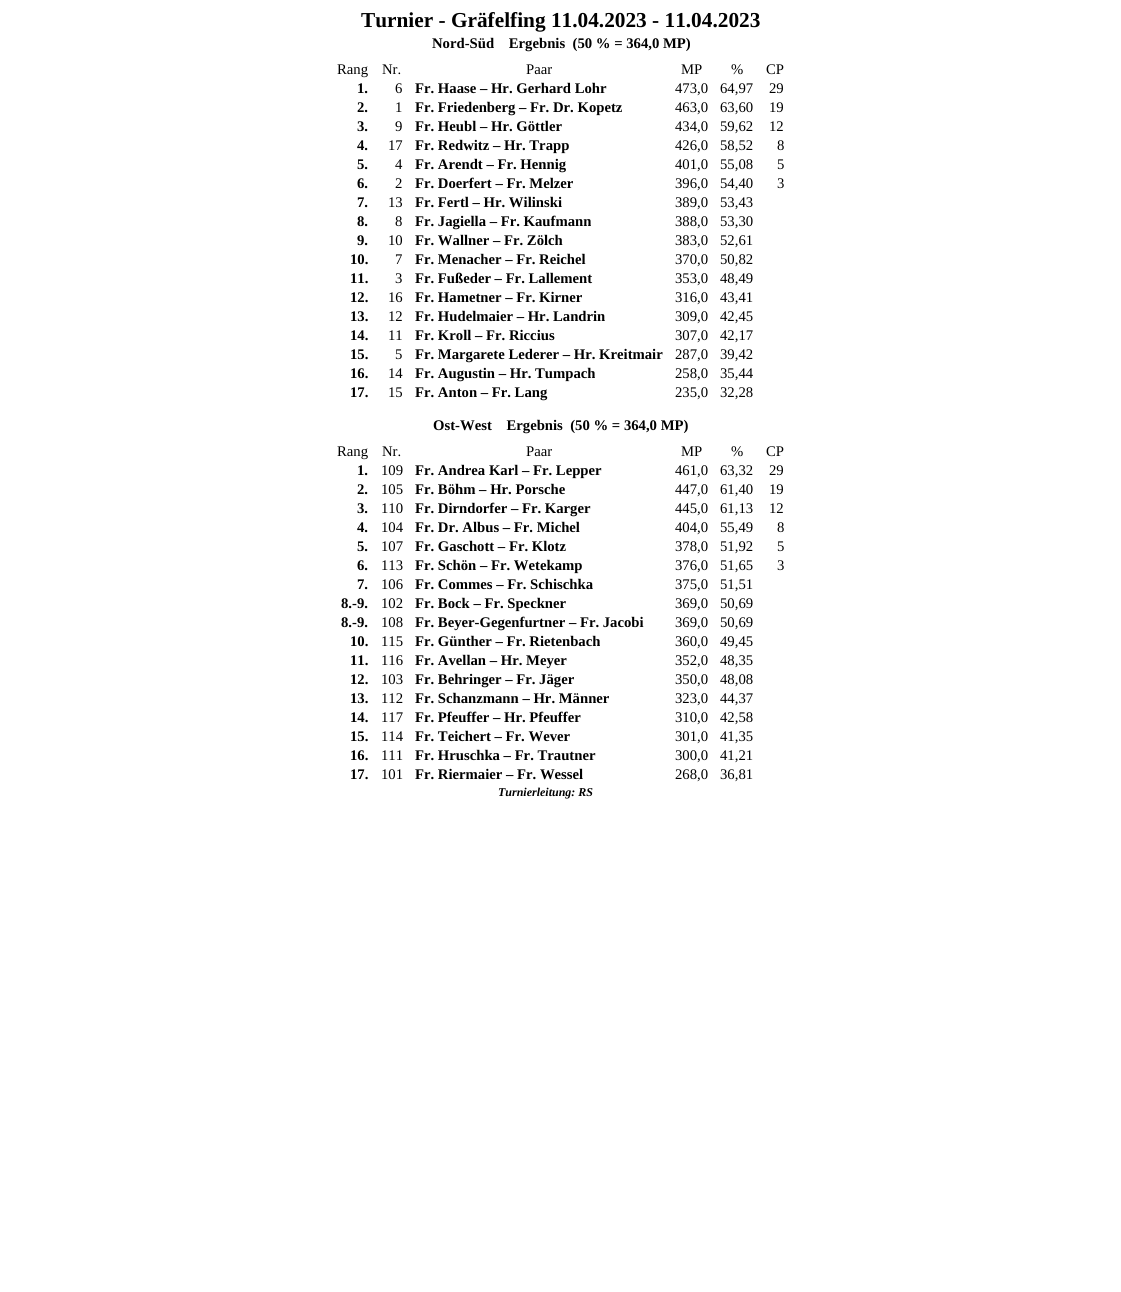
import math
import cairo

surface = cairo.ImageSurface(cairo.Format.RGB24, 1121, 1292)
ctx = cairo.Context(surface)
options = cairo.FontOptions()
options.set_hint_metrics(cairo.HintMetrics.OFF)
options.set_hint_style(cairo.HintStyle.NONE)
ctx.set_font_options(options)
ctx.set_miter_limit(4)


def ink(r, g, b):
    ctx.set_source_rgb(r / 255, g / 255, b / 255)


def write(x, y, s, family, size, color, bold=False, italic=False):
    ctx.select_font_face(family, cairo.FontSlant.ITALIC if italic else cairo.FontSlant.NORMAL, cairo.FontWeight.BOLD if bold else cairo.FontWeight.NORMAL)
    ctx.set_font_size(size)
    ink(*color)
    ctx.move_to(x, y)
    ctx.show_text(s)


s1 = dict(family="Liberation Serif", size=21.3, color=(0, 0, 0), bold=True)
s2 = dict(family="Liberation Serif", size=14.7, color=(0, 0, 0), bold=True)
s3 = dict(family="Liberation Serif", size=14.7, color=(0, 0, 0))
s4 = dict(family="Liberation Serif", size=12, color=(0, 0, 0), bold=True, italic=True)

ink(255, 255, 255)
ctx.paint()
write(361, 27, "Turnier - Gräfelfing 11.04.2023 - 11.04.2023", **s1)
write(432, 48, "Nord-Süd    Ergebnis  (50 % = 364,0 MP)", **s2)
write(337, 74, "Rang", **s3)
write(382, 74, "Nr.", **s3)
write(526, 74, "Paar", **s3)
write(681, 74, "MP", **s3)
write(731, 74, "%", **s3)
write(766, 74, "CP", **s3)
write(357, 93, "1.", **s2)
write(395, 93, "6", **s3)
write(415, 93, "Fr. Haase – Hr. Gerhard Lohr", **s2)
write(675, 93, "473,0", **s3)
write(720, 93, "64,97", **s3)
write(769, 93, "29", **s3)
write(357, 112, "2.", **s2)
write(395, 112, "1", **s3)
write(415, 112, "Fr. Friedenberg – Fr. Dr. Kopetz", **s2)
write(675, 112, "463,0", **s3)
write(720, 112, "63,60", **s3)
write(769, 112, "19", **s3)
write(357, 131, "3.", **s2)
write(395, 131, "9", **s3)
write(415, 131, "Fr. Heubl – Hr. Göttler", **s2)
write(675, 131, "434,0", **s3)
write(720, 131, "59,62", **s3)
write(769, 131, "12", **s3)
write(357, 150, "4.", **s2)
write(388, 150, "17", **s3)
write(415, 150, "Fr. Redwitz – Hr. Trapp", **s2)
write(675, 150, "426,0", **s3)
write(720, 150, "58,52", **s3)
write(777, 150, "8", **s3)
write(357, 169, "5.", **s2)
write(395, 169, "4", **s3)
write(415, 169, "Fr. Arendt – Fr. Hennig", **s2)
write(675, 169, "401,0", **s3)
write(720, 169, "55,08", **s3)
write(777, 169, "5", **s3)
write(357, 188, "6.", **s2)
write(395, 188, "2", **s3)
write(415, 188, "Fr. Doerfert – Fr. Melzer", **s2)
write(675, 188, "396,0", **s3)
write(720, 188, "54,40", **s3)
write(777, 188, "3", **s3)
write(357, 207, "7.", **s2)
write(388, 207, "13", **s3)
write(415, 207, "Fr. Fertl – Hr. Wilinski", **s2)
write(675, 207, "389,0", **s3)
write(720, 207, "53,43", **s3)
write(357, 226, "8.", **s2)
write(395, 226, "8", **s3)
write(415, 226, "Fr. Jagiella – Fr. Kaufmann", **s2)
write(675, 226, "388,0", **s3)
write(720, 226, "53,30", **s3)
write(357, 245, "9.", **s2)
write(388, 245, "10", **s3)
write(415, 245, "Fr. Wallner – Fr. Zölch", **s2)
write(675, 245, "383,0", **s3)
write(720, 245, "52,61", **s3)
write(350, 264, "10.", **s2)
write(395, 264, "7", **s3)
write(415, 264, "Fr. Menacher – Fr. Reichel", **s2)
write(675, 264, "370,0", **s3)
write(720, 264, "50,82", **s3)
write(350, 283, "11.", **s2)
write(395, 283, "3", **s3)
write(415, 283, "Fr. Fußeder – Fr. Lallement", **s2)
write(675, 283, "353,0", **s3)
write(720, 283, "48,49", **s3)
write(350, 302, "12.", **s2)
write(388, 302, "16", **s3)
write(415, 302, "Fr. Hametner – Fr. Kirner", **s2)
write(675, 302, "316,0", **s3)
write(720, 302, "43,41", **s3)
write(350, 321, "13.", **s2)
write(388, 321, "12", **s3)
write(415, 321, "Fr. Hudelmaier – Hr. Landrin", **s2)
write(675, 321, "309,0", **s3)
write(720, 321, "42,45", **s3)
write(350, 340, "14.", **s2)
write(388, 340, "11", **s3)
write(415, 340, "Fr. Kroll – Fr. Riccius", **s2)
write(675, 340, "307,0", **s3)
write(720, 340, "42,17", **s3)
write(350, 359, "15.", **s2)
write(395, 359, "5", **s3)
write(415, 359, "Fr. Margarete Lederer – Hr. Kreitmair", **s2)
write(675, 359, "287,0", **s3)
write(720, 359, "39,42", **s3)
write(350, 378, "16.", **s2)
write(388, 378, "14", **s3)
write(415, 378, "Fr. Augustin – Hr. Tumpach", **s2)
write(675, 378, "258,0", **s3)
write(720, 378, "35,44", **s3)
write(350, 397, "17.", **s2)
write(388, 397, "15", **s3)
write(415, 397, "Fr. Anton – Fr. Lang", **s2)
write(675, 397, "235,0", **s3)
write(720, 397, "32,28", **s3)
write(433, 430, "Ost-West    Ergebnis  (50 % = 364,0 MP)", **s2)
write(337, 456, "Rang", **s3)
write(382, 456, "Nr.", **s3)
write(526, 456, "Paar", **s3)
write(681, 456, "MP", **s3)
write(731, 456, "%", **s3)
write(766, 456, "CP", **s3)
write(357, 475, "1.", **s2)
write(381, 475, "109", **s3)
write(415, 475, "Fr. Andrea Karl – Fr. Lepper", **s2)
write(675, 475, "461,0", **s3)
write(720, 475, "63,32", **s3)
write(769, 475, "29", **s3)
write(357, 494, "2.", **s2)
write(381, 494, "105", **s3)
write(415, 494, "Fr. Böhm – Hr. Porsche", **s2)
write(675, 494, "447,0", **s3)
write(720, 494, "61,40", **s3)
write(769, 494, "19", **s3)
write(357, 513, "3.", **s2)
write(381, 513, "110", **s3)
write(415, 513, "Fr. Dirndorfer – Fr. Karger", **s2)
write(675, 513, "445,0", **s3)
write(720, 513, "61,13", **s3)
write(769, 513, "12", **s3)
write(357, 532, "4.", **s2)
write(381, 532, "104", **s3)
write(415, 532, "Fr. Dr. Albus – Fr. Michel", **s2)
write(675, 532, "404,0", **s3)
write(720, 532, "55,49", **s3)
write(777, 532, "8", **s3)
write(357, 551, "5.", **s2)
write(381, 551, "107", **s3)
write(415, 551, "Fr. Gaschott – Fr. Klotz", **s2)
write(675, 551, "378,0", **s3)
write(720, 551, "51,92", **s3)
write(777, 551, "5", **s3)
write(357, 570, "6.", **s2)
write(381, 570, "113", **s3)
write(415, 570, "Fr. Schön – Fr. Wetekamp", **s2)
write(675, 570, "376,0", **s3)
write(720, 570, "51,65", **s3)
write(777, 570, "3", **s3)
write(357, 589, "7.", **s2)
write(381, 589, "106", **s3)
write(415, 589, "Fr. Commes – Fr. Schischka", **s2)
write(675, 589, "375,0", **s3)
write(720, 589, "51,51", **s3)
write(341, 608, "8.-9.", **s2)
write(381, 608, "102", **s3)
write(415, 608, "Fr. Bock – Fr. Speckner", **s2)
write(675, 608, "369,0", **s3)
write(720, 608, "50,69", **s3)
write(341, 627, "8.-9.", **s2)
write(381, 627, "108", **s3)
write(415, 627, "Fr. Beyer-Gegenfurtner – Fr. Jacobi", **s2)
write(675, 627, "369,0", **s3)
write(720, 627, "50,69", **s3)
write(350, 646, "10.", **s2)
write(381, 646, "115", **s3)
write(415, 646, "Fr. Günther – Fr. Rietenbach", **s2)
write(675, 646, "360,0", **s3)
write(720, 646, "49,45", **s3)
write(350, 665, "11.", **s2)
write(381, 665, "116", **s3)
write(415, 665, "Fr. Avellan – Hr. Meyer", **s2)
write(675, 665, "352,0", **s3)
write(720, 665, "48,35", **s3)
write(350, 684, "12.", **s2)
write(381, 684, "103", **s3)
write(415, 684, "Fr. Behringer – Fr. Jäger", **s2)
write(675, 684, "350,0", **s3)
write(720, 684, "48,08", **s3)
write(350, 703, "13.", **s2)
write(381, 703, "112", **s3)
write(415, 703, "Fr. Schanzmann – Hr. Männer", **s2)
write(675, 703, "323,0", **s3)
write(720, 703, "44,37", **s3)
write(350, 722, "14.", **s2)
write(381, 722, "117", **s3)
write(415, 722, "Fr. Pfeuffer – Hr. Pfeuffer", **s2)
write(675, 722, "310,0", **s3)
write(720, 722, "42,58", **s3)
write(350, 741, "15.", **s2)
write(381, 741, "114", **s3)
write(415, 741, "Fr. Teichert – Fr. Wever", **s2)
write(675, 741, "301,0", **s3)
write(720, 741, "41,35", **s3)
write(350, 760, "16.", **s2)
write(381, 760, "111", **s3)
write(415, 760, "Fr. Hruschka – Fr. Trautner", **s2)
write(675, 760, "300,0", **s3)
write(720, 760, "41,21", **s3)
write(350, 779, "17.", **s2)
write(381, 779, "101", **s3)
write(415, 779, "Fr. Riermaier – Fr. Wessel", **s2)
write(675, 779, "268,0", **s3)
write(720, 779, "36,81", **s3)
write(498, 796, "Turnierleitung: RS", **s4)
surface.write_to_png("screenshot.png")
